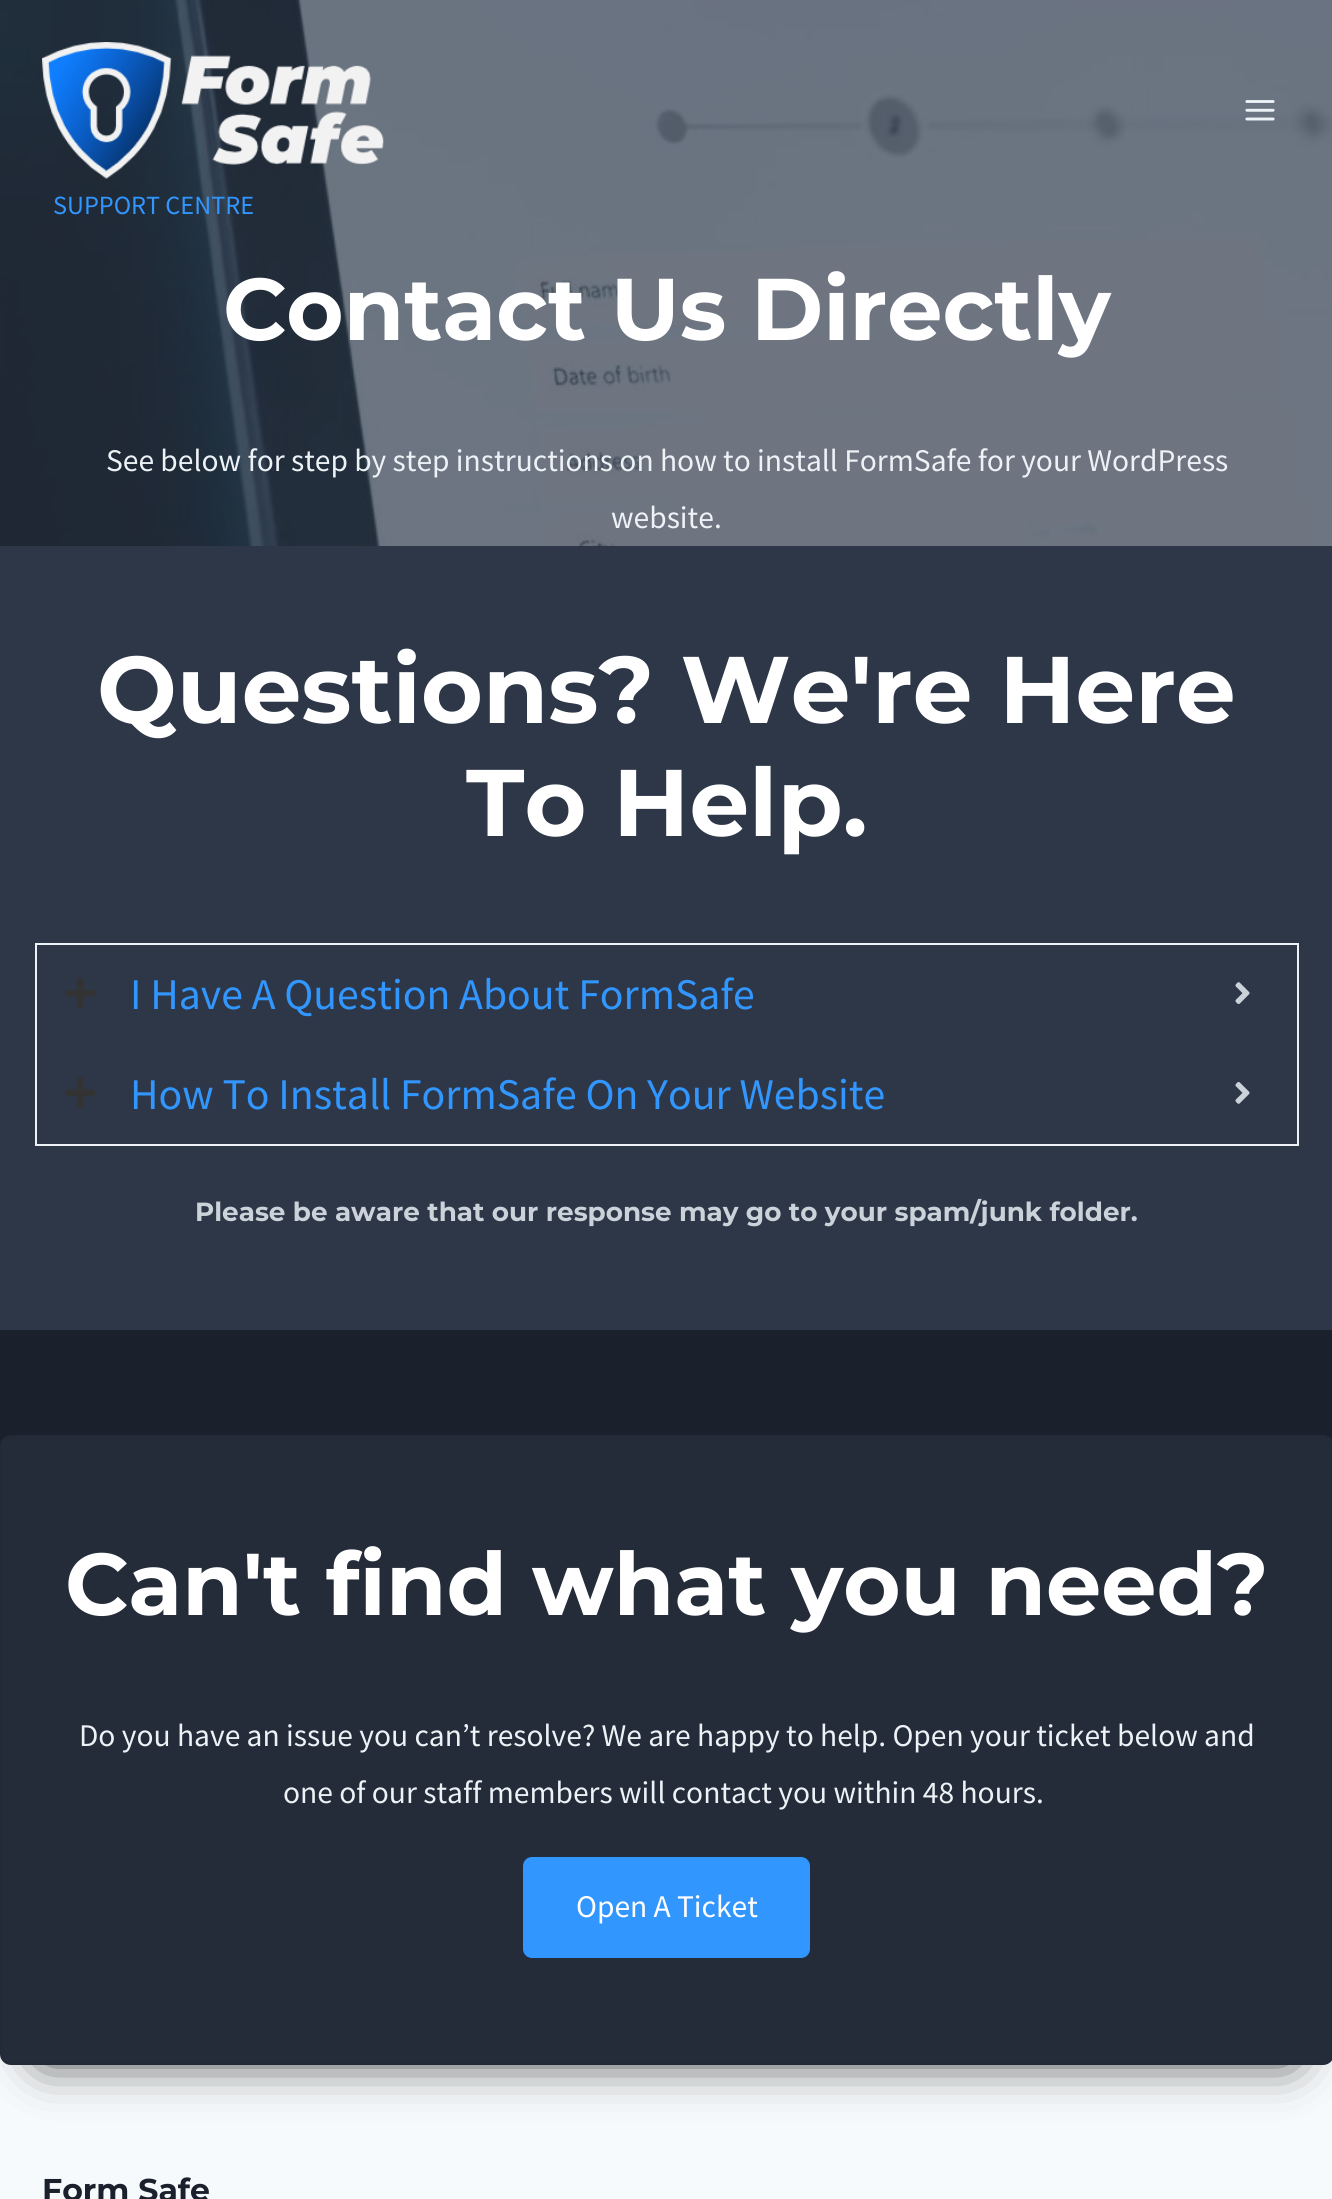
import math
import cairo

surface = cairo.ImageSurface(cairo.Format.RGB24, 1332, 2199)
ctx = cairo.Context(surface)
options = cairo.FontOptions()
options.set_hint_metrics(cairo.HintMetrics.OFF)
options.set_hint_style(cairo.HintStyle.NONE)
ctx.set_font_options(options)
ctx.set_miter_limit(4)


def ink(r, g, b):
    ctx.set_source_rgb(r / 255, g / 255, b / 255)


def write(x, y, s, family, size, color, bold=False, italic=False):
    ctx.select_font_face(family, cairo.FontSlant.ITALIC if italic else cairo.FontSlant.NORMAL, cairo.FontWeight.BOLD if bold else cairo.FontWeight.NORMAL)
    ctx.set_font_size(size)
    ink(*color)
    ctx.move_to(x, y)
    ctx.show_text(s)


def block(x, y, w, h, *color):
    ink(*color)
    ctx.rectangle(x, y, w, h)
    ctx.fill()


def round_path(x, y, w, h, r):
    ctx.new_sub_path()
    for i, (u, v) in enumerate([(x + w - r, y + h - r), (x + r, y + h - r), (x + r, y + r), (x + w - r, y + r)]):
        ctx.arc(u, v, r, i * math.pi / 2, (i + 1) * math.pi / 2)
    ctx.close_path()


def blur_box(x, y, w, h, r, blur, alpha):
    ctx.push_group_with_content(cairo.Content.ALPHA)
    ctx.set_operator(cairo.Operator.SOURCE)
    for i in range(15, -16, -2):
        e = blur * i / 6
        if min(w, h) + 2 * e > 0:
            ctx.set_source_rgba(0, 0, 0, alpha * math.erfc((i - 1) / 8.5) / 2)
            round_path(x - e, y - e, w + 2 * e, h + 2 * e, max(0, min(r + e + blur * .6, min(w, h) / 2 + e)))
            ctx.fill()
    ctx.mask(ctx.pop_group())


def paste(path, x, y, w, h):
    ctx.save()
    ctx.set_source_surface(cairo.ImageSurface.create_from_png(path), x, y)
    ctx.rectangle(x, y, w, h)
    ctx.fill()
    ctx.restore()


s1 = dict(family="Source Sans Pro", size=26.25, color=(50, 150, 255))
s2 = dict(family="Montserrat Thin", size=87.5, color=(255, 255, 255))
s3 = dict(family="Source Sans Pro", size=31.5, color=(237, 242, 247))
s4 = dict(family="Montserrat Thin", size=94.5, color=(255, 255, 255))
s5 = dict(family="Source Sans Pro", size=43.75, color=(50, 150, 255))
s6 = dict(family="Montserrat Thin", size=26.25, color=(203, 210, 217))
s7 = dict(family="Source Sans Pro", size=31.5, color=(255, 255, 255))
s8 = dict(family="Montserrat Thin", size=31.5, color=(26, 32, 44))

ink(26, 32, 44)
ctx.paint()
block(0, 0, 1332, 1330, 45, 55, 72)
paste("pic3.png", 0, 0, 1332, 546)
paste("pic1.png", 42, 42, 342, 137)
paste("pic2.png", 1245, 100, 30, 21)
write(53, 214, "SUPPORT CENTRE", **s1)
write(223, 340, "Contact Us Directly", **s2)
write(106, 471, "See below for step by step instructions on how to install FormSafe for your WordPress", **s3)
write(611, 528, "website.", **s3)
write(97, 723, "Questions? We're Here", **s4)
write(466, 836, "To Help.", **s4)
ctx.rectangle(36, 944, 1262, 201)
ink(237, 242, 247)
ctx.stroke()
paste("pic4.png", 64, 977, 32, 32)
write(130, 1009, "I Have A Question About FormSafe", **s5)
paste("pic5.png", 1235, 982, 15, 22)
paste("pic6.png", 64, 1077, 32, 32)
write(130, 1109, "How To Install FormSafe On Your Website", **s5)
paste("pic7.png", 1235, 1082, 15, 22)
write(195, 1221, "Please be aware that our response may go to your spam/junk folder.", **s6)
block(0, 2054, 1332, 145, 247, 250, 252)
ink(0, 0, 0)
blur_box(44, 1514, 1246, 542, 0, 26, 0.95)
ink(37, 44, 57)
round_path(0, 1435, 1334, 630, 11)
ctx.fill()
round_path(1, 1436, 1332, 628, 10)
ctx.set_source_rgba(0.016, 0.075, 0.161, 0.07)
ctx.stroke()
write(65, 1615, "Can't find what you need?", **s2)
write(79, 1746, "Do you have an issue you can’t resolve? We are happy to help. Open your ticket below and", **s3)
write(283, 1803, "one of our staff members will contact you within 48 hours.", **s3)
ink(50, 150, 255)
round_path(523, 1857, 287, 101, 9)
ctx.fill()
write(576, 1917, "Open A Ticket", **s7)
write(42, 2201, "Form Safe", **s8)
surface.write_to_png("screenshot.png")
